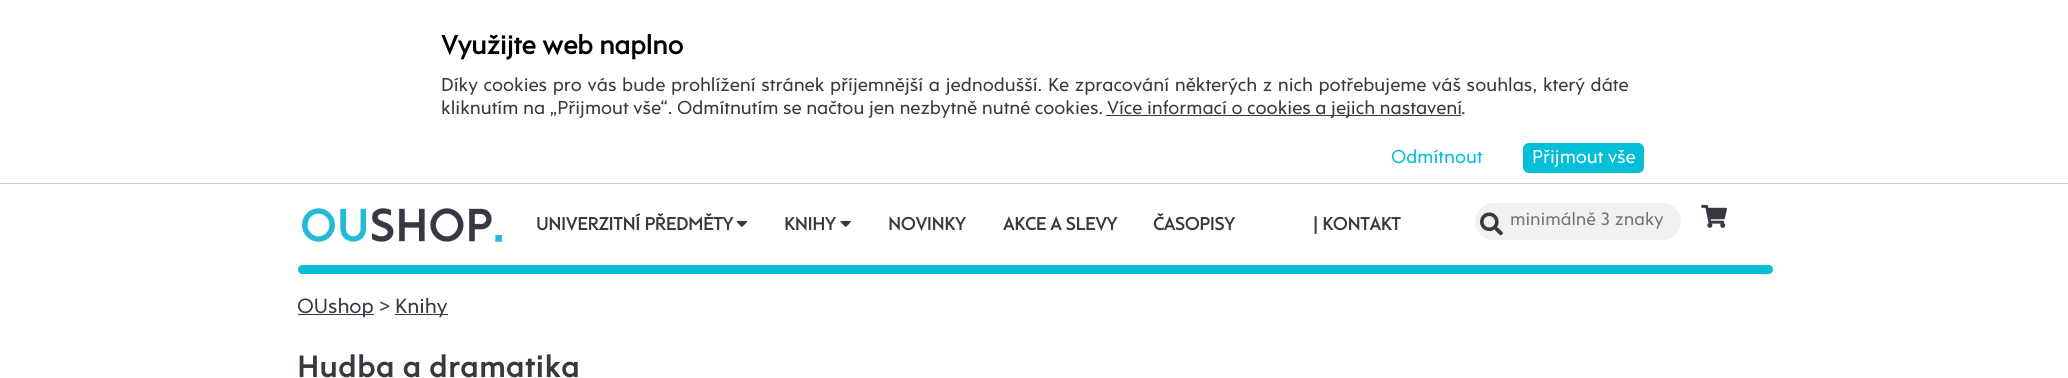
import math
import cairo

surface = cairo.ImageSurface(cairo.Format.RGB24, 2068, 378)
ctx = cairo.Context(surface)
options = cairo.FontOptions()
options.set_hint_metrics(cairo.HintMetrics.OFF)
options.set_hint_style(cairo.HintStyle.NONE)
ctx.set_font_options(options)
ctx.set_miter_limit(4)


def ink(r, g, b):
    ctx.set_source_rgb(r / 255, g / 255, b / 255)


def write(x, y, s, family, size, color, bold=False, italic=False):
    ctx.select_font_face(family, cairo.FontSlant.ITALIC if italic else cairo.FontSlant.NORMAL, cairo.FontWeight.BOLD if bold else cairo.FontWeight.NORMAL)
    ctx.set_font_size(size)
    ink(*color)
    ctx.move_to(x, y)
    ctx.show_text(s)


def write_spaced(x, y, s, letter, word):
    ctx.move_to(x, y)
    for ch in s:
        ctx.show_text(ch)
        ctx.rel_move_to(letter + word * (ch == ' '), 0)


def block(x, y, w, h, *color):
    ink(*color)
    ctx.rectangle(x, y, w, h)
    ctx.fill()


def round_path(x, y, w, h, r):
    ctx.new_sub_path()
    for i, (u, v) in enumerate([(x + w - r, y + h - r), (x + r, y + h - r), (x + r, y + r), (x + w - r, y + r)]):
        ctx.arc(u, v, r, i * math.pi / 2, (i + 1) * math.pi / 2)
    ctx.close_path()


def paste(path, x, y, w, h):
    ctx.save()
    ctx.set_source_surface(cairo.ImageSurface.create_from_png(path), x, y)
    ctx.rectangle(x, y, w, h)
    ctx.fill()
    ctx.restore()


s1 = dict(family="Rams", size=26.75, color=(0, 0, 0), bold=True)
s2 = dict(family="Rams", size=19.08, color=(55, 56, 65))
s3 = dict(family="Rams", size=19.08, color=(2, 190, 215))
s4 = dict(family="Rams", size=19.08, color=(255, 255, 255))
s5 = dict(family="Rams", size=18.25, color=(55, 56, 65), bold=True)
s6 = dict(family="Rams", size=18.25, color=(117, 117, 117))
s7 = dict(family="Rams", size=21, color=(55, 56, 65))
s8 = dict(family="Rams", size=21, color=(80, 80, 80))
s9 = dict(family="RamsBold", size=31.5, color=(55, 56, 65))

ink(255, 255, 255)
ctx.paint()
block(0, 183, 2068, 1, 204, 204, 204)
write(441, 54, "Využijte web naplno", **s1)
ctx.select_font_face("Rams")
ctx.set_font_size(19.08)
ink(55, 56, 65)
write_spaced(441, 91, "Díky cookies pro vás bude prohlížení stránek příjemnější a jednodušší. Ke zpracování některých z nich potřebujeme váš souhlas, který dáte", 0, 1.1)
write(441, 114, "kliknutím na „Přijmout vše“. Odmítnutím se načtou jen nezbytně nutné cookies.", **s2)
block(1106, 115, 355, 1, 55, 56, 65)
write(1107, 114, "Více informací o cookies a jejich nastavení", **s2)
write(1461, 114, ".", **s2)
write(1391, 163, "Odmítnout", **s3)
round_path(1523, 143, 121, 30, 6)
ctx.fill()
write(1532, 163, "Přijmout vše", **s4)
paste("pic1.png", 302, 208, 200, 34)
write(536, 230, "UNIVERZITNÍ PŘEDMĚTY", **s5)
paste("pic2.png", 736, 220, 12, 7)
write(784, 230, "KNIHY", **s5)
paste("pic3.png", 840, 220, 11, 7)
write(888, 230, "NOVINKY", **s5)
write(1003, 230, "AKCE A SLEVY", **s5)
write(1153, 230, "ČASOPISY", **s5)
write(1313, 230, "| KONTAKT", **s5)
ink(241, 241, 241)
round_path(1475, 203, 206, 37, 18.5)
ctx.fill()
paste("pic4.png", 1480, 212, 23, 24)
write(1510, 225, "minimálně 3 znaky", **s6)
paste("pic5.png", 1701, 204, 26, 24)
ink(2, 190, 215)
round_path(298, 265, 1475, 9, 4.5)
ctx.fill()
block(298, 314, 76, 1, 55, 56, 65)
write(297, 313, "OUshop", **s7)
write(379, 313, ">", **s8)
block(395, 314, 53, 1, 55, 56, 65)
write(395, 313, "Knihy", **s7)
write(297, 377, "Hudba a dramatika", **s9)
surface.write_to_png("screenshot.png")
